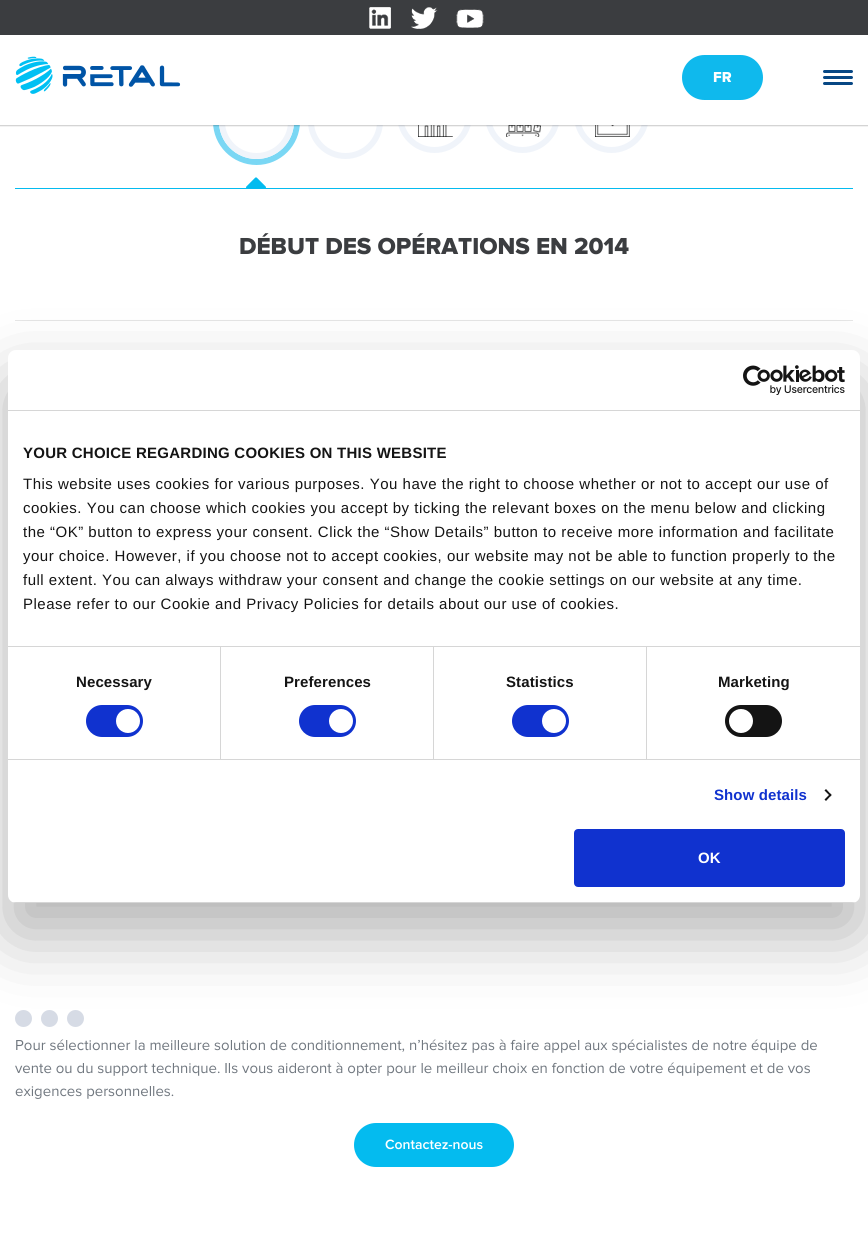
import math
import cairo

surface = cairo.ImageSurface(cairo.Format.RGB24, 868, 1253)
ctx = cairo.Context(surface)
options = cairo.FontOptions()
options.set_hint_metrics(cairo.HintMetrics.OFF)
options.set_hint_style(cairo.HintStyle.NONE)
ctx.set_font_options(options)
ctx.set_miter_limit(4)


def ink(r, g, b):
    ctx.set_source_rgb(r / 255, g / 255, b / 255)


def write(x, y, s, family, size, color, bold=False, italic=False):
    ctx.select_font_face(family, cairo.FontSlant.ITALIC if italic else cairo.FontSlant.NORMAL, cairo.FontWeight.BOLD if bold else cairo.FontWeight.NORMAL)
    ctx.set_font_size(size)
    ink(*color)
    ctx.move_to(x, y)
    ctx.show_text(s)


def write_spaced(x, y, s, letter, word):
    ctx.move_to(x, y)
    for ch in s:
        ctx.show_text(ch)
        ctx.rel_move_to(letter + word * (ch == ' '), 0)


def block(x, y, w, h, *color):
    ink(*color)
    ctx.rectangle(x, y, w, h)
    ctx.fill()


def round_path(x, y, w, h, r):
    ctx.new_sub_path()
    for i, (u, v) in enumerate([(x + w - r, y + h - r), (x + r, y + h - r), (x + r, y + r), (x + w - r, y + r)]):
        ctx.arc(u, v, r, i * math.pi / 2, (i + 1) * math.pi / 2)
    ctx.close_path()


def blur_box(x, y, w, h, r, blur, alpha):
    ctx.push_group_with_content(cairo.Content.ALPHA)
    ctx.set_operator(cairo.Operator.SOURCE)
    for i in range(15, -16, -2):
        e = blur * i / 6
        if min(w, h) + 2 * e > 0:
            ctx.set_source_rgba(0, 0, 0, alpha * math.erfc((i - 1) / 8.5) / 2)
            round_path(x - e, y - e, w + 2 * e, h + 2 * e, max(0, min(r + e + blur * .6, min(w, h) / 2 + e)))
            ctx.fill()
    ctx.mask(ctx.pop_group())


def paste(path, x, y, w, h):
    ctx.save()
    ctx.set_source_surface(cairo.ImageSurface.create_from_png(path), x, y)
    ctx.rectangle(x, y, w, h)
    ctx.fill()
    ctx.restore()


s1 = dict(family="Proxima Nova ExtraBold", size=15, color=(255, 255, 255))
s2 = dict(family="Proxima Nova ExtraBold", size=24, color=(59, 61, 64))
s3 = dict(family="Proxima Nova", size=15, color=(113, 120, 128))
s4 = dict(family="Proxima Nova SemiBold", size=14, color=(255, 255, 255))
s5 = dict(family="Liberation Sans", size=15, color=(255, 255, 255), bold=True)

ink(255, 255, 255)
ctx.paint()
ctx.arc(256.5, 121.5, 40.5, 0, 2 * math.pi)
ink(122, 215, 244)
ctx.set_line_width(6)
ctx.stroke()
ink(255, 255, 255)
ctx.arc(256.5, 121.5, 34.5, 0, 2 * math.pi)
ctx.fill_preserve()
ink(240, 244, 250)
ctx.stroke()
ctx.arc(345.5, 121.5, 34.5, 0, 2 * math.pi)
ctx.stroke()
ctx.arc(434.5, 115.5, 34.5, 0, 2 * math.pi)
ctx.stroke()
paste("pic6.png", 418, 125, 35, 12)
ctx.arc(522.5, 115.5, 34.5, 0, 2 * math.pi)
ctx.stroke()
paste("pic7.png", 506, 125, 35, 12)
ctx.arc(611.5, 115.5, 34.5, 0, 2 * math.pi)
ctx.stroke()
paste("pic8.png", 595, 125, 35, 12)
ink(0, 0, 0)
blur_box(-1, -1, 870, 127, 0, 0.5, 0.2)
block(0, 35, 868, 90, 255, 255, 255)
block(0, 0, 868, 35, 59, 61, 64)
paste("pic1.png", 369, 7, 22, 22)
paste("pic2.png", 411, 7, 27, 22)
paste("pic3.png", 456, 9, 28, 19)
paste("pic4.png", 15, 56, 166, 38)
ink(15, 185, 237)
round_path(682, 55, 81, 45, 22.5)
ctx.fill()
write(713, 82, "FR", **s1)
ink(7, 71, 132)
round_path(823, 70, 30, 3, 1.5)
ctx.fill()
round_path(823, 76, 30, 3, 1.5)
ctx.fill()
round_path(823, 82, 30, 3, 1.5)
ctx.fill()
block(15, 188, 838, 1, 4, 187, 239)
paste("pic5.png", 246, 177, 20, 11)
write(239, 254, "DÉBUT DES OPÉRATIONS EN 2014", **s2)
block(15, 320, 838, 1, 230, 230, 230)
ink(214, 219, 229)
ctx.new_path()
ctx.arc(23.5, 1018.5, 8.5, 0, 2 * math.pi)
ctx.fill()
ctx.arc(49.5, 1018.5, 8.5, 0, 2 * math.pi)
ctx.fill()
ctx.arc(75.5, 1018.5, 8.5, 0, 2 * math.pi)
ctx.fill()
write(15, 1050, "Pour sélectionner la meilleure solution de conditionnement, n’hésitez pas à faire appel aux spécialistes de notre équipe de", **s3)
write(15, 1073, "vente ou du support technique. Ils vous aideront à opter pour le meilleur choix en fonction de votre équipement et de vos", **s3)
write(15, 1096, "exigences personnelles.", **s3)
ink(4, 187, 239)
round_path(354, 1123, 160, 44, 22)
ctx.fill()
write(385, 1149, "Contactez-nous", **s4)
ink(0, 0, 0)
blur_box(8, 382, 852, 553, 8, 34, 0.3)
ink(255, 255, 255)
round_path(8, 350, 852, 553, 8)
ctx.fill()
block(8, 410, 852, 1, 214, 214, 214)
paste("pic9.png", 743, 365, 102, 30)
block(8, 646, 852, 1, 214, 214, 214)
ctx.select_font_face("Liberation Sans", cairo.FontSlant.NORMAL, cairo.FontWeight.BOLD)
ctx.set_font_size(15)
ink(20, 20, 20)
write_spaced(23, 458, "YOUR CHOICE REGARDING COOKIES ON THIS WEBSITE", 0.25, 0)
ctx.select_font_face("Liberation Sans")
write_spaced(23, 489, "This website uses cookies for various purposes. You have the right to choose whether or not to accept our use of", 0.5, 0)
write_spaced(23, 513, "cookies. You can choose which cookies you accept by ticking the relevant boxes on the menu below and clicking", 0.5, 0)
write_spaced(23, 537, "the “OK” button to express your consent. Click the “Show Details” button to receive more information and facilitate", 0.5, 0)
write_spaced(23, 561, "your choice. However, if you choose not to accept cookies, our website may not be able to function properly to the", 0.5, 0)
write_spaced(23, 585, "full extent. You can always withdraw your consent and change the cookie settings on our website at any time.", 0.5, 0)
write_spaced(23, 609, "Please refer to our Cookie and Privacy Policies for details about our use of cookies.", 0.5, 0)
block(8, 759, 852, 1, 214, 214, 214)
block(220, 647, 1, 112, 214, 214, 214)
ctx.select_font_face("Liberation Sans", cairo.FontSlant.NORMAL, cairo.FontWeight.BOLD)
ink(20, 20, 20)
write_spaced(76, 687, "Necessary", 0.1, 0)
ink(16, 50, 207)
round_path(86, 705, 57, 32, 16)
ctx.fill()
ink(255, 255, 255)
ctx.arc(128, 721, 12, 0, 2 * math.pi)
ctx.fill()
block(433, 647, 1, 112, 214, 214, 214)
ink(20, 20, 20)
write_spaced(284, 687, "Preferences", 0.1, 0)
ink(16, 50, 207)
round_path(299, 705, 57, 32, 16)
ctx.fill()
ink(255, 255, 255)
ctx.arc(341, 721, 12, 0, 2 * math.pi)
ctx.fill()
block(646, 647, 1, 112, 214, 214, 214)
ink(20, 20, 20)
write_spaced(506, 687, "Statistics", 0.1, 0)
ink(16, 50, 207)
round_path(512, 705, 57, 32, 16)
ctx.fill()
ink(255, 255, 255)
ctx.arc(554, 721, 12, 0, 2 * math.pi)
ctx.fill()
ink(20, 20, 20)
write_spaced(718, 687, "Marketing", 0.1, 0)
round_path(725, 705, 57, 32, 16)
ctx.fill()
ink(255, 255, 255)
ctx.arc(741, 721, 12, 0, 2 * math.pi)
ctx.fill()
ink(16, 50, 207)
write_spaced(714, 800, "Show details", 0.1, 0)
ink(20, 20, 20)
ctx.new_path()
ctx.move_to(826, 789)
ctx.line_to(831.5, 795)
ctx.line_to(830.5, 796.5)
ctx.line_to(824.5, 790.5)
ctx.close_path()
ctx.fill()
ctx.new_path()
ctx.move_to(830.5, 793.5)
ctx.line_to(831.5, 795)
ctx.line_to(826, 801)
ctx.line_to(824.5, 799.5)
ctx.close_path()
ctx.fill()
ctx.save()
round_path(8, 350, 852, 553, 8)
ctx.clip()
block(8, 902, 852, 1, 214, 214, 214)
ctx.restore()
ink(16, 50, 207)
round_path(575, 830, 269, 56, 3)
ctx.fill_preserve()
ctx.set_line_width(2)
ctx.stroke()
write(698, 863, "OK", **s5)
surface.write_to_png("screenshot.png")
